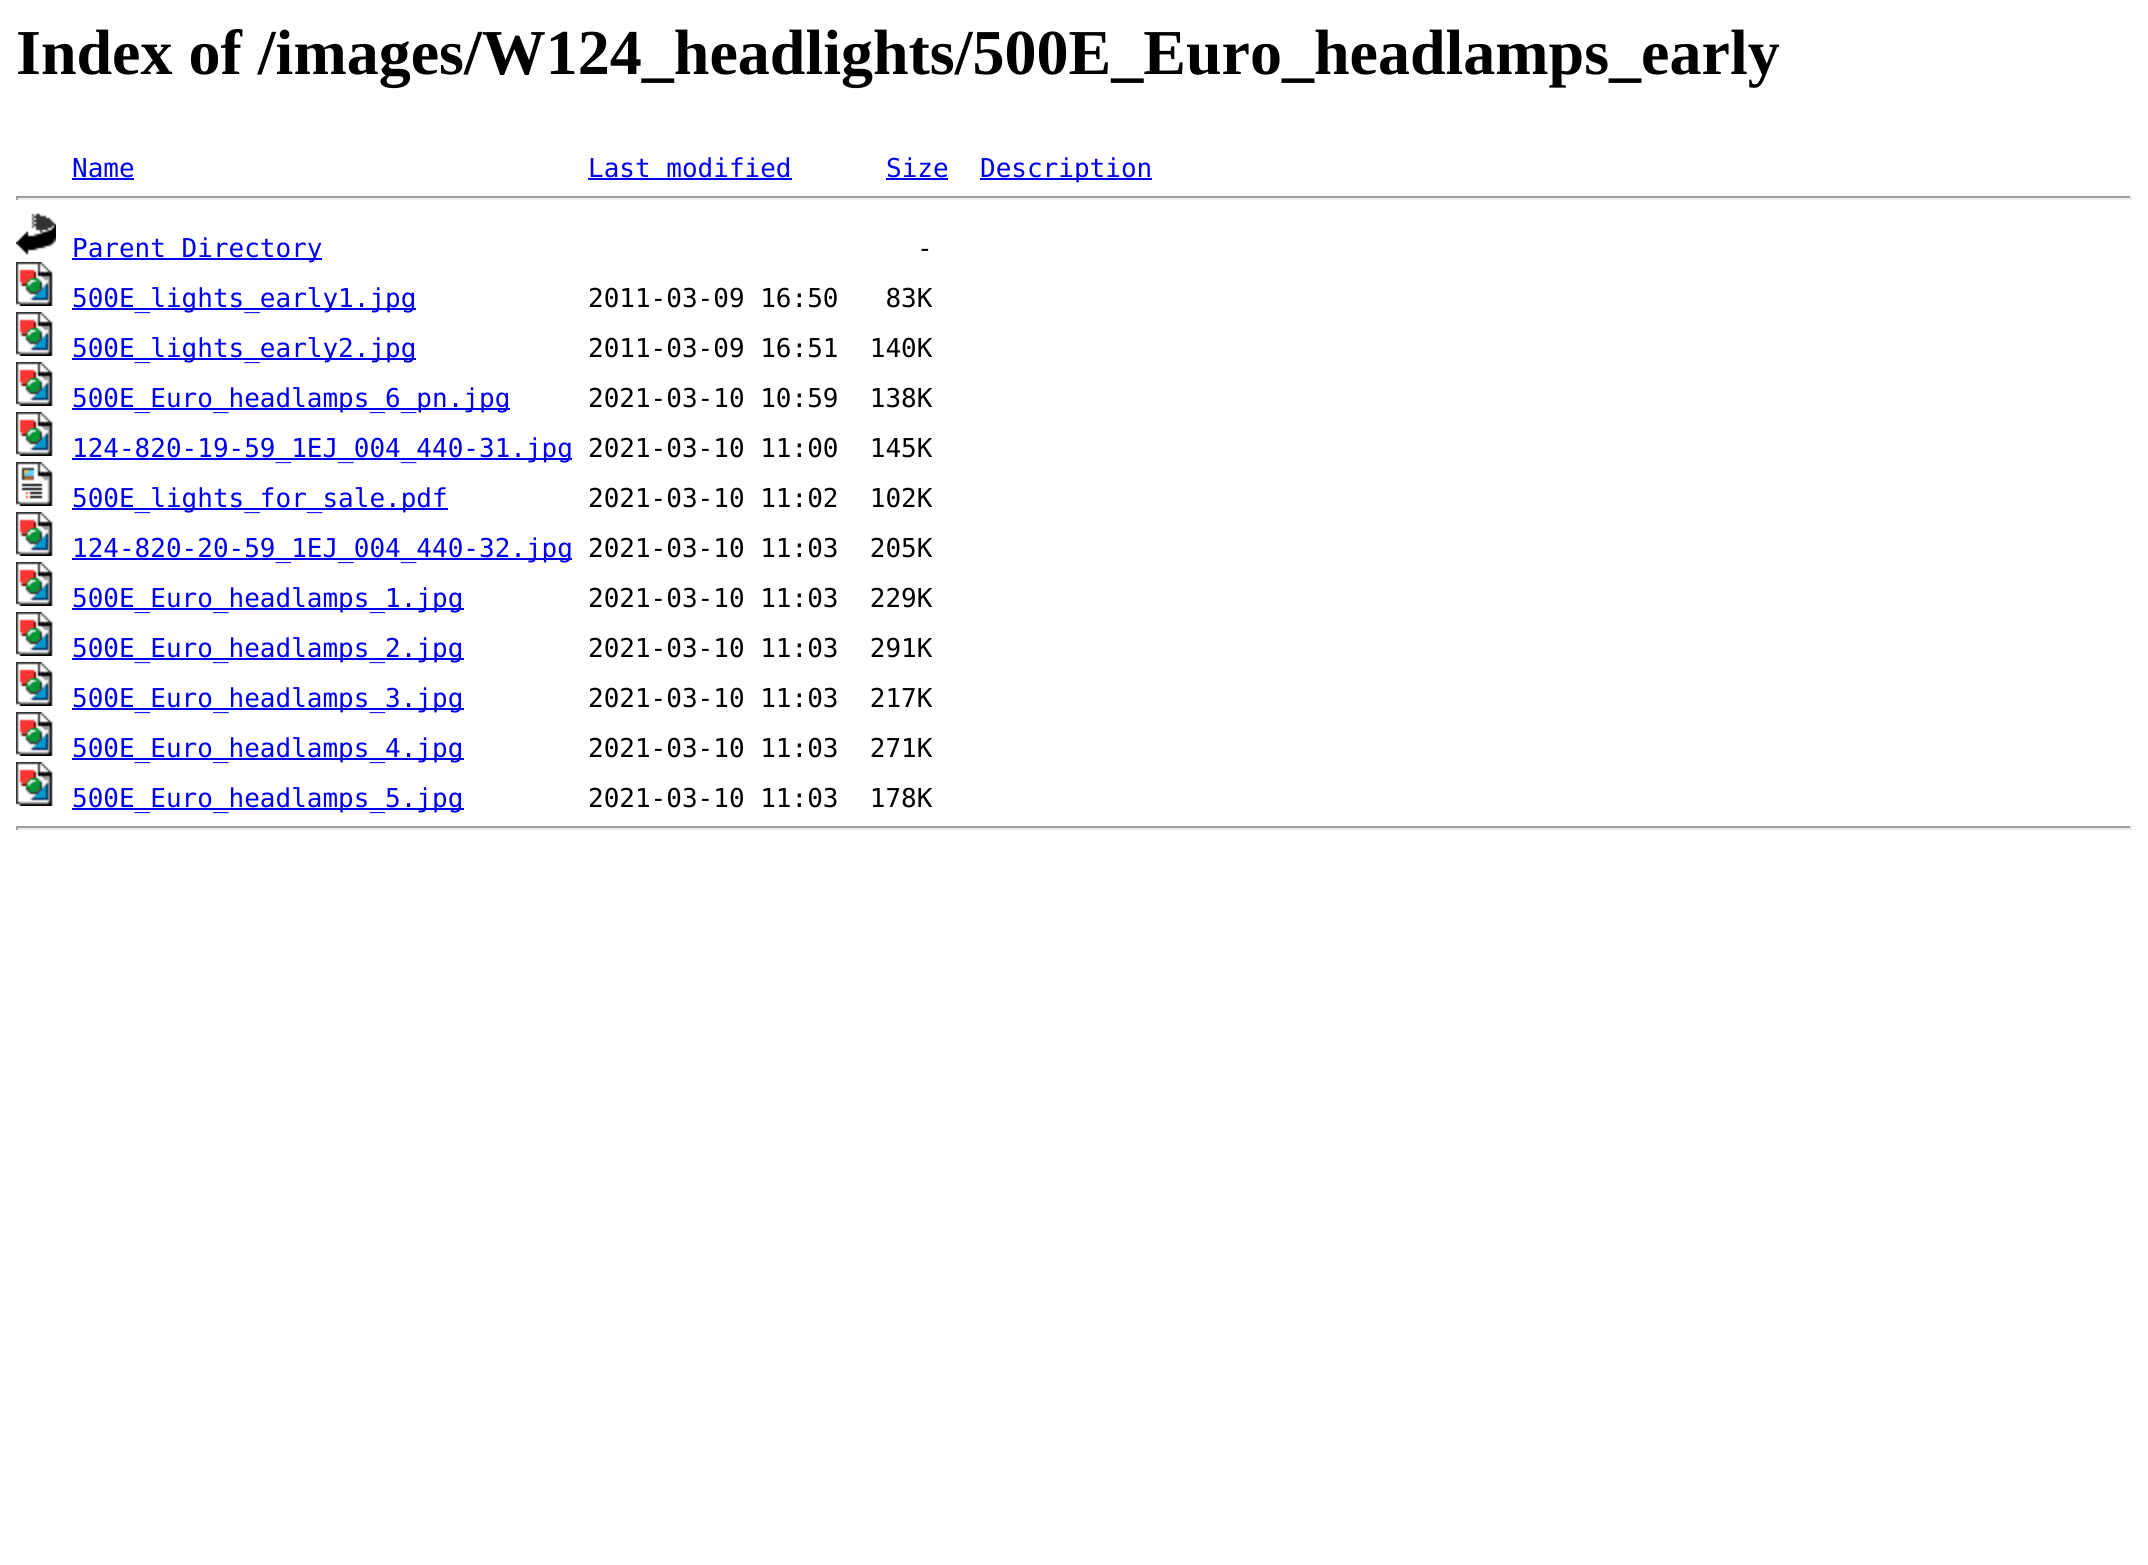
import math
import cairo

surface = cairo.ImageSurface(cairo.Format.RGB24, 2148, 1565)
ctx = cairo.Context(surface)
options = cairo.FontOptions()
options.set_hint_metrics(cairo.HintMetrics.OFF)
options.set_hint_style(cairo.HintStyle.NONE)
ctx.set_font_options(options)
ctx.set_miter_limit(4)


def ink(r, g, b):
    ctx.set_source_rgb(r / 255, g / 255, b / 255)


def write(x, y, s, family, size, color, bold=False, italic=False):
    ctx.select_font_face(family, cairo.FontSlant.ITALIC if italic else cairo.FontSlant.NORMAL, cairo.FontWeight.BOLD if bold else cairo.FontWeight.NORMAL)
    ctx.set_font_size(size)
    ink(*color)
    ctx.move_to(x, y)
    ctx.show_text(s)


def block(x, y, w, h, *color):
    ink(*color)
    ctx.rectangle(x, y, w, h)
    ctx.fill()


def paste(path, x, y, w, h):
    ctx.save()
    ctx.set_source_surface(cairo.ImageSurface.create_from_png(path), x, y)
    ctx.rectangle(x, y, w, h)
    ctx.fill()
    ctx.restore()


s1 = dict(family="Liberation Serif", size=64, color=(0, 0, 0), bold=True)
s2 = dict(family="DejaVu Sans Mono", size=26, color=(0, 0, 238))
s3 = dict(family="DejaVu Sans Mono", size=26, color=(0, 0, 0))

ink(255, 255, 255)
ctx.paint()
write(16, 74, "Index of /images/W124_headlights/500E_Euro_headlamps_early", **s1)
write(72, 177, "Name", **s2)
block(72, 178, 62, 2, 0, 0, 238)
write(588, 177, "Last modified", **s2)
block(588, 178, 204, 2, 0, 0, 238)
write(886, 177, "Size", **s2)
block(886, 178, 62, 2, 0, 0, 238)
block(980, 178, 172, 2, 0, 0, 238)
write(980, 177, "Description", **s2)
block(16, 196, 2116, 2, 159, 159, 159)
block(2130, 196, 2, 4, 238, 238, 238)
block(16, 198, 2116, 2, 238, 238, 238)
block(16, 196, 2, 4, 159, 159, 159)
paste("pic1.png", 16, 213, 40, 42)
block(72, 258, 250, 2, 0, 0, 238)
write(72, 257, "Parent Directory", **s2)
write(917, 257, "-", **s3)
paste("pic2.png", 16, 262, 37, 44)
block(72, 308, 344, 2, 0, 0, 238)
write(72, 307, "500E_lights_early1.jpg", **s2)
write(588, 307, "2011-03-09 16:50   83K", **s3)
paste("pic2.png", 16, 312, 37, 44)
block(72, 358, 344, 2, 0, 0, 238)
write(72, 357, "500E_lights_early2.jpg", **s2)
write(588, 357, "2011-03-09 16:51  140K", **s3)
paste("pic2.png", 16, 362, 37, 44)
block(72, 408, 438, 2, 0, 0, 238)
write(72, 407, "500E_Euro_headlamps_6_pn.jpg", **s2)
write(588, 407, "2021-03-10 10:59  138K", **s3)
paste("pic2.png", 16, 412, 37, 44)
block(72, 458, 500, 2, 0, 0, 238)
write(72, 457, "124-820-19-59_1EJ_004_440-31.jpg", **s2)
write(588, 457, "2021-03-10 11:00  145K", **s3)
paste("pic3.png", 16, 462, 37, 44)
block(72, 508, 376, 2, 0, 0, 238)
write(72, 507, "500E_lights_for_sale.pdf", **s2)
write(588, 507, "2021-03-10 11:02  102K", **s3)
paste("pic2.png", 16, 512, 37, 44)
block(72, 558, 500, 2, 0, 0, 238)
write(72, 557, "124-820-20-59_1EJ_004_440-32.jpg", **s2)
write(588, 557, "2021-03-10 11:03  205K", **s3)
paste("pic2.png", 16, 562, 37, 44)
block(72, 608, 392, 2, 0, 0, 238)
write(72, 607, "500E_Euro_headlamps_1.jpg", **s2)
write(588, 607, "2021-03-10 11:03  229K", **s3)
paste("pic2.png", 16, 612, 37, 44)
block(72, 658, 392, 2, 0, 0, 238)
write(72, 657, "500E_Euro_headlamps_2.jpg", **s2)
write(588, 657, "2021-03-10 11:03  291K", **s3)
paste("pic2.png", 16, 662, 37, 44)
block(72, 708, 392, 2, 0, 0, 238)
write(72, 707, "500E_Euro_headlamps_3.jpg", **s2)
write(588, 707, "2021-03-10 11:03  217K", **s3)
paste("pic2.png", 16, 712, 37, 44)
block(72, 758, 392, 2, 0, 0, 238)
write(72, 757, "500E_Euro_headlamps_4.jpg", **s2)
write(588, 757, "2021-03-10 11:03  271K", **s3)
paste("pic2.png", 16, 762, 37, 44)
block(72, 808, 392, 2, 0, 0, 238)
write(72, 807, "500E_Euro_headlamps_5.jpg", **s2)
write(588, 807, "2021-03-10 11:03  178K", **s3)
block(16, 826, 2116, 2, 159, 159, 159)
block(2130, 826, 2, 4, 238, 238, 238)
block(16, 828, 2116, 2, 238, 238, 238)
block(16, 826, 2, 4, 159, 159, 159)
surface.write_to_png("screenshot.png")
